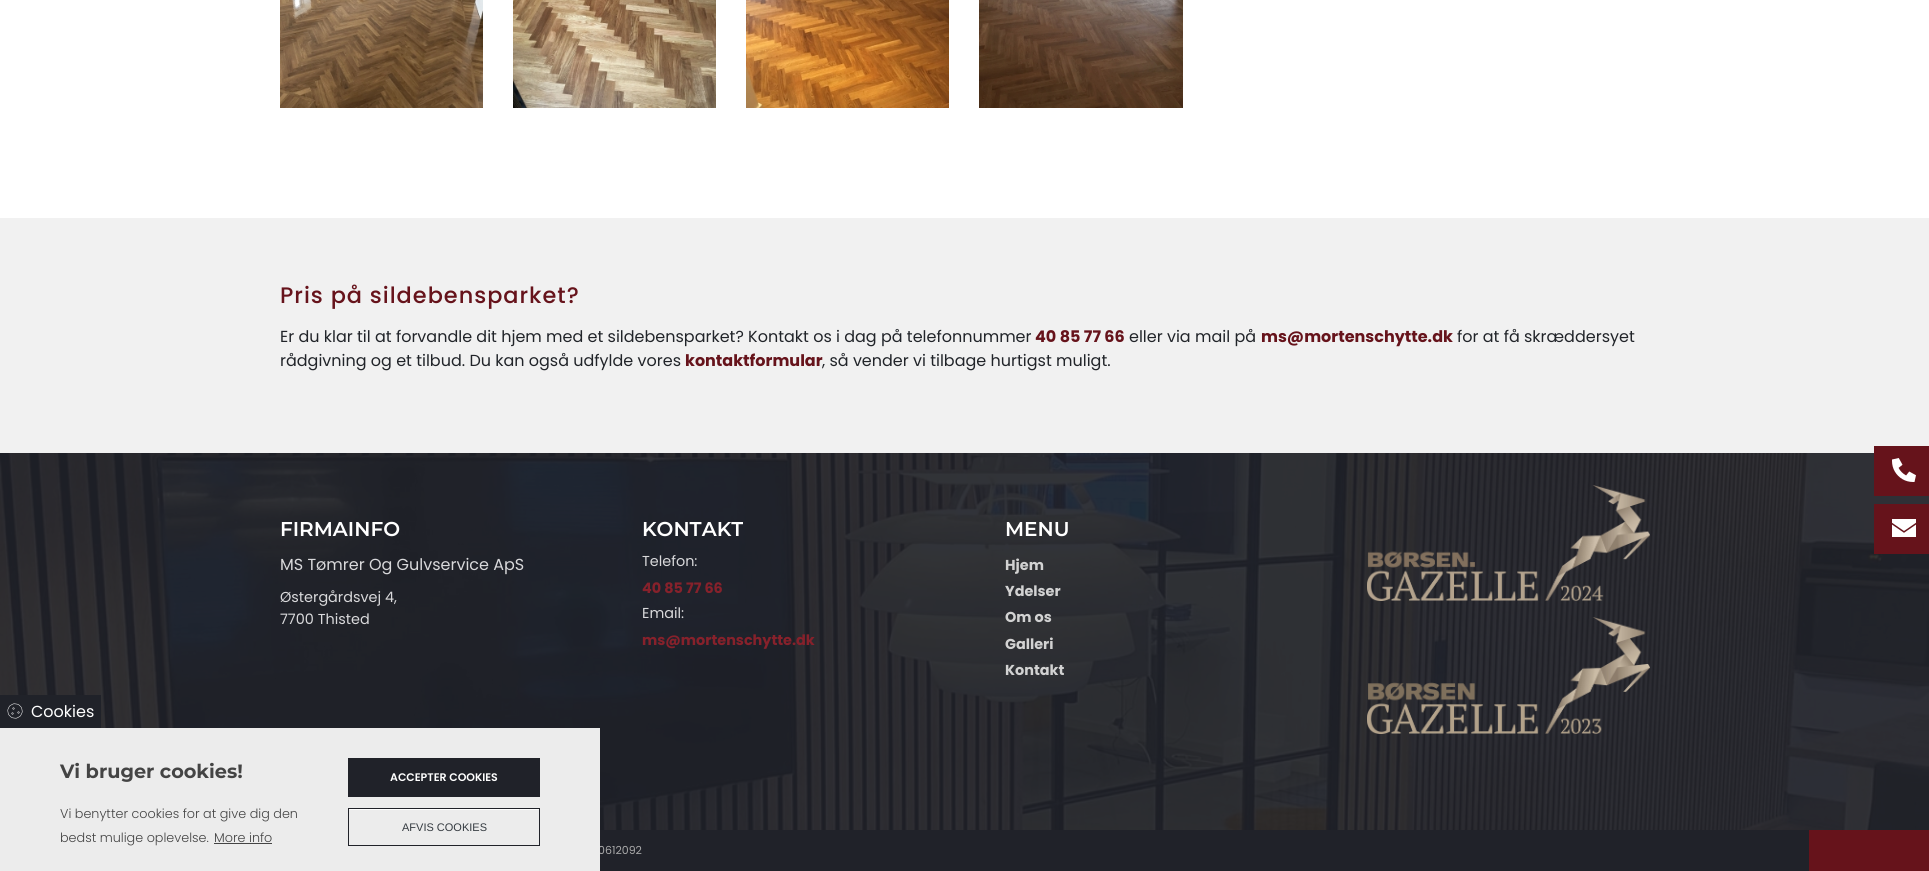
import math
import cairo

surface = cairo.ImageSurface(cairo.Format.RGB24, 1929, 871)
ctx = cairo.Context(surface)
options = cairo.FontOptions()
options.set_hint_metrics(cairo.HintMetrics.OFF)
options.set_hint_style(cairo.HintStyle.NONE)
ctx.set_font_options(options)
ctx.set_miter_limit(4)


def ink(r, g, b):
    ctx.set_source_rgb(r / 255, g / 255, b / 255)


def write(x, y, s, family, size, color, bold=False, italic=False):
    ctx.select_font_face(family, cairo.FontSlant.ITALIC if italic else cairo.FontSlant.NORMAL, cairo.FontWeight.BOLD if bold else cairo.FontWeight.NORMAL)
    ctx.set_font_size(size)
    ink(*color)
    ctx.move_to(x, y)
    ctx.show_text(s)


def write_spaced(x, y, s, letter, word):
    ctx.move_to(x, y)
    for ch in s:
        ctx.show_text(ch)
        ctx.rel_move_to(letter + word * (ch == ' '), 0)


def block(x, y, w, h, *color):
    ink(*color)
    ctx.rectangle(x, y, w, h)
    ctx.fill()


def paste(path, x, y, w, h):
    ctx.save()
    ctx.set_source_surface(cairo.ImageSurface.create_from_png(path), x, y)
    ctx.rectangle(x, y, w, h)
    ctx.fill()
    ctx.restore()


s1 = dict(family="Poppins", size=11, color=(170, 170, 170))
s2 = dict(family="Poppins", size=16, color=(255, 255, 255))
s3 = dict(family="Montserrat", size=19.25, color=(68, 68, 68), bold=True)
s4 = dict(family="Poppins Light", size=12.75, color=(68, 68, 68))
s5 = dict(family="Poppins SemiBold", size=11, color=(255, 255, 255))
s6 = dict(family="Liberation Sans", size=11, color=(52, 58, 64))
s7 = dict(family="Poppins", size=16, color=(33, 36, 41))
s8 = dict(family="Poppins", size=16, color=(102, 19, 27), bold=True)
s9 = dict(family="Montserrat SemiBold", size=20, color=(255, 255, 255))
s10 = dict(family="Poppins", size=16, color=(217, 217, 219))
s11 = dict(family="Poppins", size=14.4, color=(217, 217, 219))
s12 = dict(family="Poppins", size=14.4, color=(135, 33, 43), bold=True)
s13 = dict(family="Poppins", size=14.4, color=(210, 210, 210), bold=True)

ink(255, 255, 255)
ctx.paint()
block(0, 453, 1929, 377, 32, 34, 41)
paste("pic8.png", 0, 453, 1929, 377)
block(600, 830, 1209, 41, 32, 34, 41)
write(598, 854, "0612092", **s1)
block(0, 728, 600, 143, 236, 236, 236)
block(0, 695, 101, 33, 32, 34, 41)
paste("pic1.png", 7, 703, 16, 16)
write(31, 717, "Cookies", **s2)
write(60, 778, "Vi bruger cookies!", **s3)
write(60, 818, "Vi benytter cookies for at give dig den", **s4)
write(60, 842, "bedst mulige oplevelse.", **s4)
write(214, 842, "More info", **s4)
block(214, 843, 58, 1, 68, 68, 68)
block(348, 758, 192, 39, 32, 34, 41)
write(390, 781, "ACCEPTER COOKIES", **s5)
block(349, 809, 190, 1, 255, 255, 255)
ctx.rectangle(348.5, 808.5, 191, 37)
ink(32, 34, 41)
ctx.set_line_width(1)
ctx.stroke()
write(402, 831, "AFVIS COOKIES", **s6)
paste("pic2.png", 280, 0, 203, 108)
paste("pic3.png", 513, 0, 203, 108)
paste("pic4.png", 746, 0, 203, 108)
paste("pic5.png", 979, 0, 204, 108)
block(0, 218, 1929, 235, 241, 241, 241)
ctx.select_font_face("Poppins Medium")
ctx.set_font_size(22.4)
ink(102, 19, 27)
write_spaced(280, 303, "Pris på sildebensparket?", 1, 0)
write(280, 342, "Er du klar til at forvandle dit hjem med et sildebensparket? Kontakt os i dag på telefonnummer", **s7)
write(1035, 342, "40 85 77 66", **s8)
write(1129, 342, "eller via mail på", **s7)
write(1261, 342, "ms@mortenschytte.dk", **s8)
write(1457, 342, "for at få skræddersyet", **s7)
write(280, 366, "rådgivning og et tilbud. Du kan også udfylde vores", **s7)
write(685, 366, "kontaktformular", **s8)
write(822, 366, ", så vender vi tilbage hurtigst muligt.", **s7)
block(1874, 446, 55, 50, 102, 19, 27)
paste("pic6.png", 1892, 458, 24, 24)
block(1874, 504, 55, 50, 102, 19, 27)
paste("pic7.png", 1892, 519, 24, 18)
write(280, 536, "FIRMAINFO", **s9)
write(280, 570, "MS Tømrer Og Gulvservice ApS", **s10)
write(280, 602, "Østergårdsvej 4,", **s11)
write(280, 624, "7700 Thisted", **s11)
write(642, 536, "KONTAKT", **s9)
write(642, 566, "Telefon:", **s11)
write(642, 593, "40 85 77 66", **s12)
write(642, 618, "Email:", **s11)
write(642, 645, "ms@mortenschytte.dk", **s12)
write(1005, 536, "MENU", **s9)
write(1005, 570, "Hjem", **s13)
write(1005, 596, "Ydelser", **s13)
write(1005, 622, "Om os", **s13)
write(1005, 649, "Galleri", **s13)
write(1005, 675, "Kontakt", **s13)
paste("pic9.png", 1367, 485, 283, 116)
paste("pic10.png", 1367, 617, 283, 117)
block(1809, 830, 120, 41, 102, 19, 27)
surface.write_to_png("screenshot.png")
